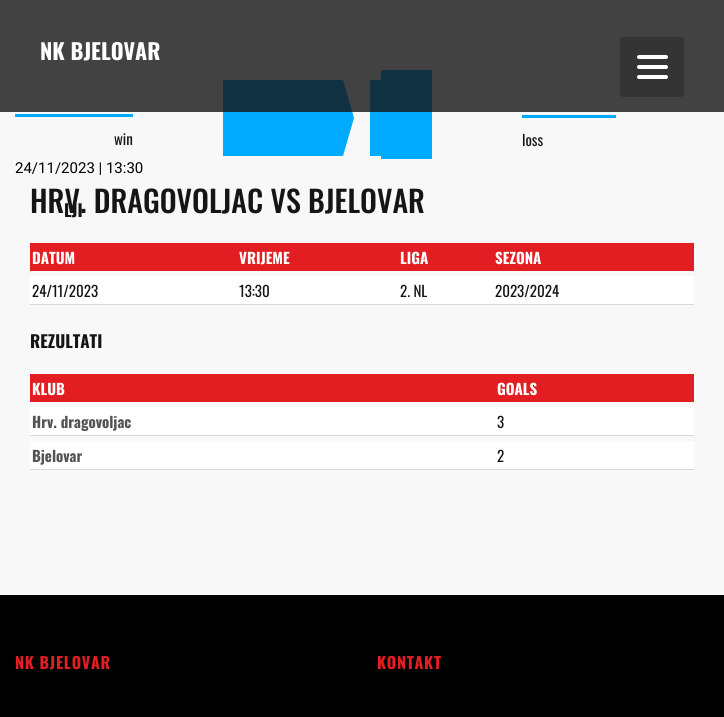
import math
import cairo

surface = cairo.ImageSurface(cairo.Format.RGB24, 724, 717)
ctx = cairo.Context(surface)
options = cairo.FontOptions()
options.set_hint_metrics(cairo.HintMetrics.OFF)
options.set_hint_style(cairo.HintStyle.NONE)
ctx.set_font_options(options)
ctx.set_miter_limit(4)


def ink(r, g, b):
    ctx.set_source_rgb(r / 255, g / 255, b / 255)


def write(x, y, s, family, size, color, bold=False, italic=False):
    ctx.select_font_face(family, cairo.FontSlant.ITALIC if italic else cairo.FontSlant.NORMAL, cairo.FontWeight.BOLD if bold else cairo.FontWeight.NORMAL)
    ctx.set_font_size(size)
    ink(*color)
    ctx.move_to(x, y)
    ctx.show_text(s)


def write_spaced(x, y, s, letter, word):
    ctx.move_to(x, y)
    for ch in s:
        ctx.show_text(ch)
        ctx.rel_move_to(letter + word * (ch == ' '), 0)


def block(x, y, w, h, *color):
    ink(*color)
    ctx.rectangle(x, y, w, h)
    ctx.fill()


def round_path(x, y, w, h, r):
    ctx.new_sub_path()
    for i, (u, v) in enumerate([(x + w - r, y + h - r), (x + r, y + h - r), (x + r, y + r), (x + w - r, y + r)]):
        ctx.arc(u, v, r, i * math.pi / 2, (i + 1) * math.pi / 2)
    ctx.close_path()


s1 = dict(family="Oswald", size=22, color=(255, 255, 255), bold=True)
s2 = dict(family="Oswald", size=15, color=(21, 21, 21))
s3 = dict(family="Roboto", size=15, color=(0, 0, 0))
s4 = dict(family="Oswald Medium", size=30, color=(21, 21, 21))
s5 = dict(family="Oswald", size=17, color=(21, 21, 21), bold=True)
s6 = dict(family="Oswald", size=15, color=(255, 255, 255), bold=True)
s7 = dict(family="Oswald", size=15, color=(83, 83, 83), bold=True)

ink(0, 0, 0)
ctx.paint()
block(0, 0, 724, 595, 248, 248, 248)
block(223, 80, 120, 76, 0, 170, 255)
ctx.new_path()
ctx.move_to(343, 156)
ctx.line_to(343, 80)
ctx.line_to(354, 118)
ctx.close_path()
ctx.fill()
block(370, 80, 11, 76, 0, 170, 255)
block(381, 70, 51, 89, 0, 170, 255)
ctx.set_source_rgba(0.082, 0.082, 0.082, 0.8)
ctx.rectangle(0, 0, 724, 112)
ctx.fill()
write(40, 60, "NK BJELOVAR", **s1)
ink(52, 52, 53)
round_path(620, 37, 64, 60, 3)
ctx.fill()
ink(255, 255, 255)
round_path(637, 55, 31, 4, 2)
ctx.fill()
round_path(637, 65, 31, 4, 2)
ctx.fill()
round_path(637, 75, 31, 4, 2)
ctx.fill()
block(15, 114, 118, 3, 0, 170, 255)
write(114, 145, "win", **s2)
block(522, 115, 94, 3, 0, 170, 255)
write(522, 146, "loss", **s2)
write(15, 173, "24/11/2023 | 13:30", **s3)
write(30, 213, "HRV. DRAGOVOLJAC VS BJELOVAR", **s4)
write(64, 217, "LJI", **s5)
block(30, 243, 664, 28, 226, 30, 34)
write(32, 264, "DATUM", **s6)
write(239, 264, "VRIJEME", **s6)
write(400, 264, "LIGA", **s6)
write(495, 264, "SEZONA", **s6)
block(30, 276, 664, 28, 255, 255, 255)
block(30, 304, 664, 1, 216, 216, 216)
write(32, 297, "24/11/2023", **s2)
write(239, 297, "13:30", **s2)
write(400, 297, "2. NL", **s2)
write(495, 297, "2023/2024", **s2)
write(30, 348, "REZULTATI", **s5)
block(30, 374, 664, 28, 226, 30, 34)
write(32, 395, "KLUB", **s6)
write(497, 395, "GOALS", **s6)
block(30, 407, 664, 28, 255, 255, 255)
block(30, 435, 664, 1, 216, 216, 216)
write(32, 428, "Hrv. dragovoljac", **s7)
write(497, 428, "3", **s2)
block(30, 441, 664, 28, 255, 255, 255)
block(30, 469, 664, 1, 216, 216, 216)
write(32, 462, "Bjelovar", **s7)
write(497, 462, "2", **s2)
ctx.select_font_face("Oswald", cairo.FontSlant.NORMAL, cairo.FontWeight.BOLD)
ctx.set_font_size(16)
ink(226, 30, 34)
write_spaced(15, 669, "NK BJELOVAR", 0.75, 0)
write_spaced(377, 669, "KONTAKT", 0.75, 0)
surface.write_to_png("screenshot.png")
